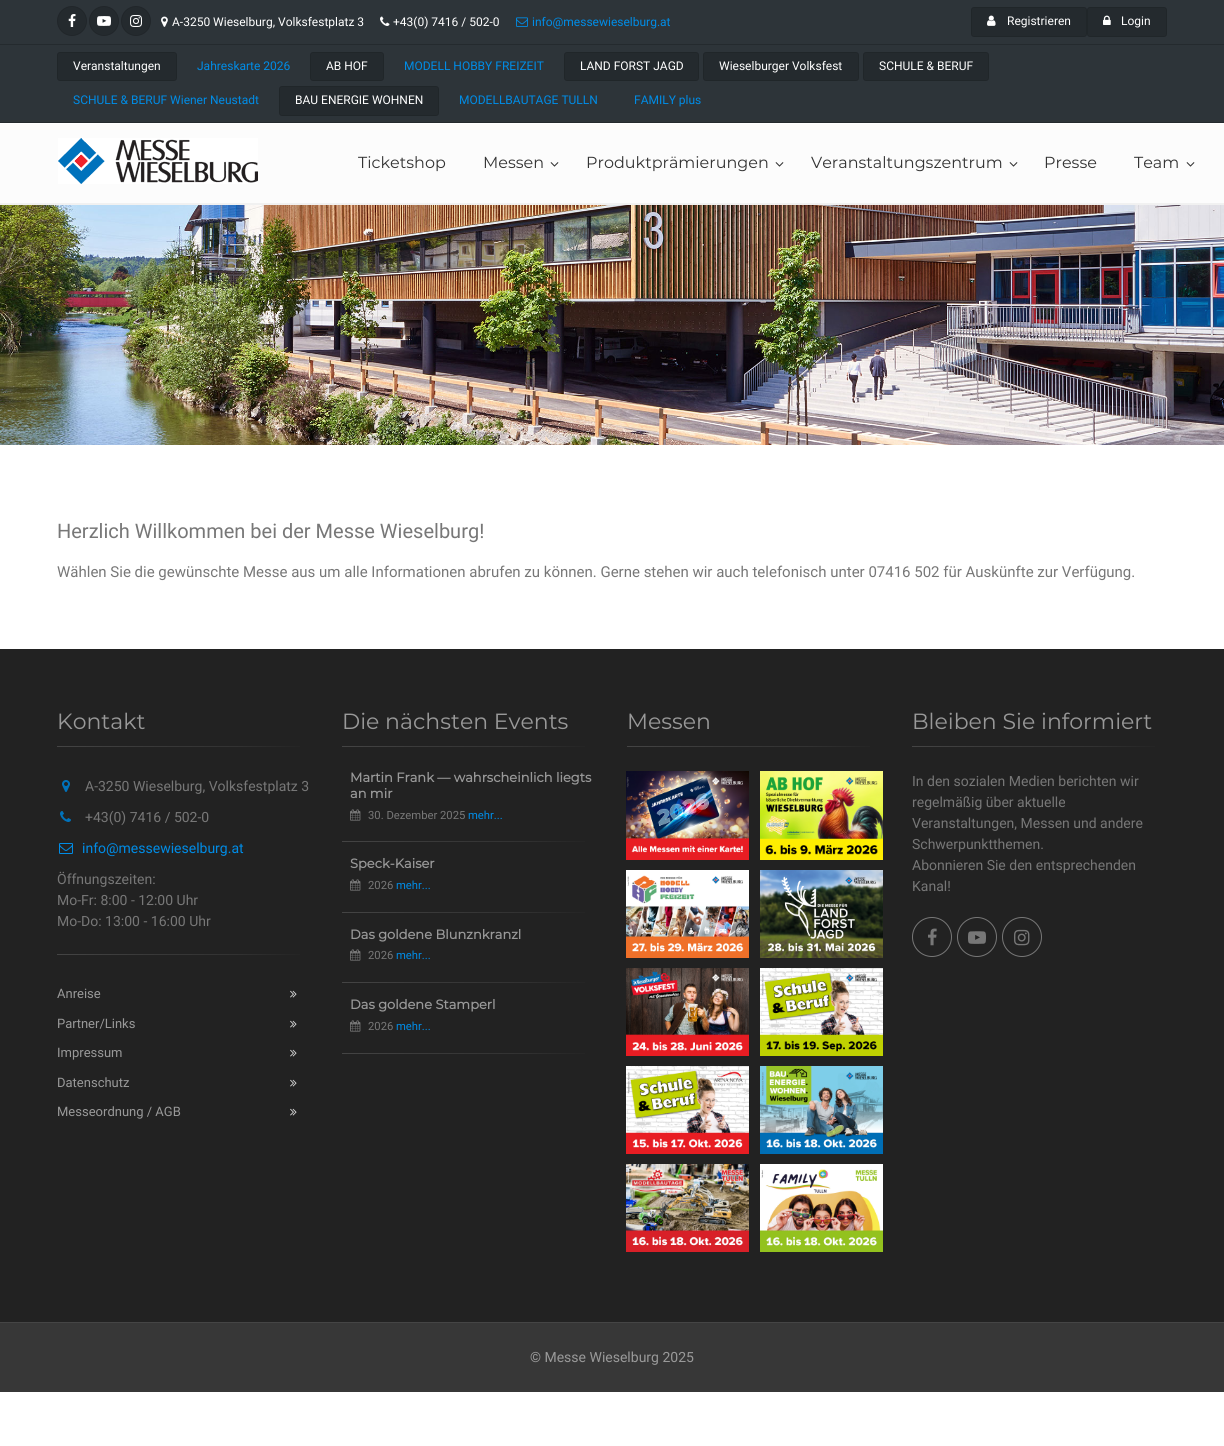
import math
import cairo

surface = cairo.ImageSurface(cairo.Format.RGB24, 1224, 1446)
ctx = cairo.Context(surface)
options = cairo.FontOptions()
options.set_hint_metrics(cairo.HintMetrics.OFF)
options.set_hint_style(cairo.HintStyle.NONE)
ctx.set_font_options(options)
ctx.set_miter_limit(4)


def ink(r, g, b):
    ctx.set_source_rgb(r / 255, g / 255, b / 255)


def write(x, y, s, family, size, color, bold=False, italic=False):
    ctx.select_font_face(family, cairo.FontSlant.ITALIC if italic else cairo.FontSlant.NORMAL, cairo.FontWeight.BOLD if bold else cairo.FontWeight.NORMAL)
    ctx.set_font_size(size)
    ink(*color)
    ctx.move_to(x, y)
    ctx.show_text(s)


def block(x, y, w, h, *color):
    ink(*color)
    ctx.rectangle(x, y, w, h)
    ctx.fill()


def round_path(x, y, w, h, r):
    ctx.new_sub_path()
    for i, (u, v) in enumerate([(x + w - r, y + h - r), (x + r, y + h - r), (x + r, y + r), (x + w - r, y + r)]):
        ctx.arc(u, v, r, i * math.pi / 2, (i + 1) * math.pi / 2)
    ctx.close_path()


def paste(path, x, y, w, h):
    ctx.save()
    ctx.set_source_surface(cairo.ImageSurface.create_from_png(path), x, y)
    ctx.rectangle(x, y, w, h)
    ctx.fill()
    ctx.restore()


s1 = dict(family="Roboto", size=12, color=(255, 255, 255))
s2 = dict(family="Roboto", size=12, color=(0, 140, 230))
s3 = dict(family="Montserrat", size=16, color=(51, 51, 51))
s4 = dict(family="Roboto", size=20, color=(119, 119, 119))
s5 = dict(family="Roboto", size=15, color=(119, 119, 119))
s6 = dict(family="Montserrat", size=22, color=(153, 153, 153))
s7 = dict(family="Roboto", size=14, color=(119, 119, 119))
s8 = dict(family="Roboto", size=14, color=(0, 140, 230))
s9 = dict(family="Roboto", size=13, color=(153, 153, 153))
s10 = dict(family="Montserrat", size=13, color=(153, 153, 153), bold=True)
s11 = dict(family="Roboto", size=11.25, color=(119, 119, 119))
s12 = dict(family="Roboto", size=11.25, color=(0, 140, 230))
s13 = dict(family="Roboto", size=14, color=(153, 153, 153))

ink(255, 255, 255)
ctx.paint()
block(0, 0, 1224, 44, 45, 52, 57)
block(0, 44, 1224, 1, 36, 42, 46)
ctx.arc(72, 21, 15, 0, 2 * math.pi)
ctx.fill()
ctx.arc(72, 21, 14.5, 0, 2 * math.pi)
ctx.set_source_rgba(0, 0, 0, 0.1)
ctx.set_line_width(1)
ctx.stroke()
paste("pic1.png", 68, 14, 8, 13)
ink(36, 42, 46)
ctx.arc(104, 21, 15, 0, 2 * math.pi)
ctx.fill()
ctx.arc(104, 21, 14.5, 0, 2 * math.pi)
ctx.set_source_rgba(0, 0, 0, 0.1)
ctx.stroke()
paste("pic2.png", 97, 16, 14, 10)
ink(36, 42, 46)
ctx.arc(136, 21, 15, 0, 2 * math.pi)
ctx.fill()
ctx.arc(136, 21, 14.5, 0, 2 * math.pi)
ctx.set_source_rgba(0, 0, 0, 0.1)
ctx.stroke()
paste("pic3.png", 130, 15, 12, 12)
paste("pic4.png", 161, 16, 7, 11)
write(172, 26, "A-3250 Wieselburg, Volksfestplatz 3", **s1)
paste("pic5.png", 380, 16, 10, 10)
write(393, 26, "+43(0) 7416 / 502-0", **s1)
paste("pic6.png", 516, 17, 12, 10)
write(532, 26, "info@messewieselburg.at", **s2)
ink(36, 42, 46)
round_path(971, 7, 116, 30, 3)
ctx.fill()
round_path(971.5, 7.5, 115, 29, 2.5)
ctx.set_source_rgba(0, 0, 0, 0.1)
ctx.stroke()
paste("pic7.png", 987, 15, 9, 11)
write(1007, 25, "Registrieren", **s1)
ink(36, 42, 46)
round_path(1087, 7, 80, 30, 3)
ctx.fill()
round_path(1087.5, 7.5, 79, 29, 2.5)
ctx.set_source_rgba(0, 0, 0, 0.1)
ctx.stroke()
paste("pic8.png", 1103, 15, 8, 10)
write(1121, 25, "Login", **s1)
block(0, 45, 1224, 77, 45, 52, 57)
block(0, 122, 1224, 1, 36, 42, 46)
round_path(57, 52, 120, 29, 3)
ctx.fill()
round_path(57.5, 52.5, 119, 28, 2.5)
ctx.set_source_rgba(0, 0, 0, 0.1)
ctx.stroke()
write(73, 70, "Veranstaltungen", **s1)
write(197, 70, "Jahreskarte 2026", **s2)
ink(36, 42, 46)
round_path(310, 52, 74, 29, 3)
ctx.fill()
round_path(310.5, 52.5, 73, 28, 2.5)
ctx.set_source_rgba(0, 0, 0, 0.1)
ctx.stroke()
write(326, 70, "AB HOF", **s1)
write(404, 70, "MODELL HOBBY FREIZEIT", **s2)
ink(36, 42, 46)
round_path(564, 52, 135, 29, 3)
ctx.fill()
round_path(564.5, 52.5, 134, 28, 2.5)
ctx.set_source_rgba(0, 0, 0, 0.1)
ctx.stroke()
write(580, 70, "LAND FORST JAGD", **s1)
ink(36, 42, 46)
round_path(703, 52, 156, 29, 3)
ctx.fill()
round_path(703.5, 52.5, 155, 28, 2.5)
ctx.set_source_rgba(0, 0, 0, 0.1)
ctx.stroke()
write(719, 70, "Wieselburger Volksfest", **s1)
ink(36, 42, 46)
round_path(863, 52, 126, 29, 3)
ctx.fill()
round_path(863.5, 52.5, 125, 28, 2.5)
ctx.set_source_rgba(0, 0, 0, 0.1)
ctx.stroke()
write(879, 70, "SCHULE & BERUF", **s1)
write(73, 104, "SCHULE & BERUF Wiener Neustadt", **s2)
ink(36, 42, 46)
round_path(279, 86, 160, 30, 3)
ctx.fill()
round_path(279.5, 86.5, 159, 29, 2.5)
ctx.set_source_rgba(0, 0, 0, 0.1)
ctx.stroke()
write(295, 104, "BAU ENERGIE WOHNEN", **s1)
write(459, 104, "MODELLBAUTAGE TULLN", **s2)
write(634, 104, "FAMILY plus", **s2)
block(0, 124, 1224, 79, 252, 252, 252)
block(0, 203, 1224, 2, 241, 241, 241)
paste("pic9.png", 58, 138, 200, 46)
write(358, 168, "Ticketshop", **s3)
write(483, 168, "Messen", **s3)
paste("pic10.png", 550, 162, 9, 5)
write(586, 168, "Produktprämierungen", **s3)
paste("pic10.png", 775, 162, 9, 5)
write(811, 168, "Veranstaltungszentrum", **s3)
paste("pic10.png", 1009, 162, 9, 5)
write(1044, 168, "Presse", **s3)
write(1134, 168, "Team", **s3)
paste("pic10.png", 1186, 162, 9, 5)
paste("pic11.png", 0, 205, 1224, 240)
write(57, 538, "Herzlich Willkommen bei der Messe Wieselburg!", **s4)
write(57, 577, "Wählen Sie die gewünschte Messe aus um alle Informationen abrufen zu können. Gerne stehen wir auch telefonisch unter 07416 502 für Auskünfte zur Verfügung.", **s5)
block(0, 649, 1224, 673, 34, 34, 34)
write(57, 729, "Kontakt", **s6)
gradient = cairo.LinearGradient(57, 747, 312, 747)
gradient.add_color_stop_rgba(0, 0.267, 0.267, 0.267, 1)
gradient.add_color_stop_rgba(0.35, 0.224, 0.224, 0.224, 1)
gradient.add_color_stop_rgba(0.7, 0.196, 0.196, 0.196, 1)
gradient.add_color_stop_rgba(1, 0.133, 0.133, 0.133, 1)
ctx.set_source(gradient)
ctx.rectangle(57, 746, 243, 1)
ctx.fill()
paste("pic12.png", 62, 780, 8, 12)
write(85, 791, "A-3250 Wieselburg, Volksfestplatz 3", **s7)
paste("pic13.png", 60, 811, 11, 11)
write(85, 822, "+43(0) 7416 / 502-0", **s7)
paste("pic14.png", 59, 843, 14, 11)
write(82, 853, "info@messewieselburg.at", **s8)
write(57, 884, "Öffnungszeiten:", **s7)
write(57, 905, "Mo-Fr: 8:00 - 12:00 Uhr", **s7)
write(57, 926, "Mo-Do: 13:00 - 16:00 Uhr", **s7)
gradient = cairo.LinearGradient(57, 955, 312, 955)
gradient.add_color_stop_rgba(0, 0.267, 0.267, 0.267, 1)
gradient.add_color_stop_rgba(0.35, 0.224, 0.224, 0.224, 1)
gradient.add_color_stop_rgba(0.7, 0.196, 0.196, 0.196, 1)
gradient.add_color_stop_rgba(1, 0.133, 0.133, 0.133, 1)
ctx.set_source(gradient)
ctx.rectangle(57, 954, 243, 1)
ctx.fill()
write(57, 998, "Anreise", **s9)
paste("pic15.png", 290, 990, 7, 8)
write(57, 1028, "Partner/Links", **s9)
paste("pic15.png", 290, 1020, 7, 8)
write(57, 1057, "Impressum", **s9)
paste("pic15.png", 290, 1049, 7, 8)
write(57, 1087, "Datenschutz", **s9)
paste("pic15.png", 290, 1079, 7, 8)
write(57, 1116, "Messeordnung / AGB", **s9)
paste("pic15.png", 290, 1108, 7, 8)
write(342, 729, "Die nächsten Events", **s6)
gradient = cairo.LinearGradient(342, 747, 597, 747)
gradient.add_color_stop_rgba(0, 0.267, 0.267, 0.267, 1)
gradient.add_color_stop_rgba(0.35, 0.224, 0.224, 0.224, 1)
gradient.add_color_stop_rgba(0.7, 0.196, 0.196, 0.196, 1)
gradient.add_color_stop_rgba(1, 0.133, 0.133, 0.133, 1)
ctx.set_source(gradient)
ctx.rectangle(342, 746, 243, 1)
ctx.fill()
write(350, 782, "Martin Frank — wahrscheinlich liegts", **s10)
write(350, 798, "an mir", **s10)
paste("pic16.png", 350, 809, 11, 12)
write(368, 819, "30. Dezember 2025", **s11)
write(468, 819, "mehr...", **s12)
gradient = cairo.LinearGradient(342, 842, 597, 842)
gradient.add_color_stop_rgba(0, 0.267, 0.267, 0.267, 1)
gradient.add_color_stop_rgba(0.35, 0.224, 0.224, 0.224, 1)
gradient.add_color_stop_rgba(0.7, 0.196, 0.196, 0.196, 1)
gradient.add_color_stop_rgba(1, 0.133, 0.133, 0.133, 1)
ctx.set_source(gradient)
ctx.rectangle(342, 841, 243, 1)
ctx.fill()
write(350, 868, "Speck-Kaiser", **s10)
paste("pic16.png", 350, 879, 11, 12)
write(368, 889, "2026", **s11)
write(396, 889, "mehr...", **s12)
gradient = cairo.LinearGradient(342, 913, 597, 913)
gradient.add_color_stop_rgba(0, 0.267, 0.267, 0.267, 1)
gradient.add_color_stop_rgba(0.35, 0.224, 0.224, 0.224, 1)
gradient.add_color_stop_rgba(0.7, 0.196, 0.196, 0.196, 1)
gradient.add_color_stop_rgba(1, 0.133, 0.133, 0.133, 1)
ctx.set_source(gradient)
ctx.rectangle(342, 912, 243, 1)
ctx.fill()
write(350, 939, "Das goldene Blunznkranzl", **s10)
paste("pic16.png", 350, 949, 11, 12)
write(368, 959, "2026", **s11)
write(396, 959, "mehr...", **s12)
gradient = cairo.LinearGradient(342, 983, 597, 983)
gradient.add_color_stop_rgba(0, 0.267, 0.267, 0.267, 1)
gradient.add_color_stop_rgba(0.35, 0.224, 0.224, 0.224, 1)
gradient.add_color_stop_rgba(0.7, 0.196, 0.196, 0.196, 1)
gradient.add_color_stop_rgba(1, 0.133, 0.133, 0.133, 1)
ctx.set_source(gradient)
ctx.rectangle(342, 982, 243, 1)
ctx.fill()
write(350, 1009, "Das goldene Stamperl", **s10)
paste("pic16.png", 350, 1020, 11, 12)
write(368, 1030, "2026", **s11)
write(396, 1030, "mehr...", **s12)
gradient = cairo.LinearGradient(342, 1054, 597, 1054)
gradient.add_color_stop_rgba(0, 0.267, 0.267, 0.267, 1)
gradient.add_color_stop_rgba(0.35, 0.224, 0.224, 0.224, 1)
gradient.add_color_stop_rgba(0.7, 0.196, 0.196, 0.196, 1)
gradient.add_color_stop_rgba(1, 0.133, 0.133, 0.133, 1)
ctx.set_source(gradient)
ctx.rectangle(342, 1053, 243, 1)
ctx.fill()
write(627, 729, "Messen", **s6)
gradient = cairo.LinearGradient(627, 747, 882, 747)
gradient.add_color_stop_rgba(0, 0.267, 0.267, 0.267, 1)
gradient.add_color_stop_rgba(0.35, 0.224, 0.224, 0.224, 1)
gradient.add_color_stop_rgba(0.7, 0.196, 0.196, 0.196, 1)
gradient.add_color_stop_rgba(1, 0.133, 0.133, 0.133, 1)
ctx.set_source(gradient)
ctx.rectangle(627, 746, 243, 1)
ctx.fill()
paste("pic17.png", 626, 771, 123, 89)
paste("pic18.png", 760, 771, 123, 89)
paste("pic19.png", 626, 870, 123, 88)
paste("pic20.png", 760, 870, 123, 88)
paste("pic21.png", 626, 968, 123, 88)
paste("pic22.png", 760, 968, 123, 88)
paste("pic23.png", 626, 1066, 123, 88)
paste("pic24.png", 760, 1066, 123, 88)
paste("pic25.png", 626, 1164, 123, 88)
paste("pic26.png", 760, 1164, 123, 88)
write(912, 729, "Bleiben Sie informiert", **s6)
gradient = cairo.LinearGradient(912, 747, 1167, 747)
gradient.add_color_stop_rgba(0, 0.267, 0.267, 0.267, 1)
gradient.add_color_stop_rgba(0.35, 0.224, 0.224, 0.224, 1)
gradient.add_color_stop_rgba(0.7, 0.196, 0.196, 0.196, 1)
gradient.add_color_stop_rgba(1, 0.133, 0.133, 0.133, 1)
ctx.set_source(gradient)
ctx.rectangle(912, 746, 243, 1)
ctx.fill()
write(912, 786, "In den sozialen Medien berichten wir", **s7)
write(912, 807, "regelmäßig über aktuelle", **s7)
write(912, 828, "Veranstaltungen, Messen und andere", **s7)
write(912, 849, "Schwerpunktthemen.", **s7)
write(912, 870, "Abonnieren Sie den entsprechenden", **s7)
write(912, 891, "Kanal!", **s7)
ctx.new_path()
ctx.arc(932, 937, 19.5, 0, 2 * math.pi)
ctx.stroke()
paste("pic27.png", 928, 928, 9, 18)
ctx.arc(977, 937, 19.5, 0, 2 * math.pi)
ctx.stroke()
paste("pic28.png", 968, 931, 18, 13)
ctx.arc(1022, 937, 19.5, 0, 2 * math.pi)
ctx.stroke()
paste("pic29.png", 1014, 929, 16, 17)
block(0, 1323, 1224, 69, 55, 55, 55)
block(0, 1322, 1224, 1, 69, 69, 69)
write(530, 1362, "© Messe Wieselburg 2025", **s13)
surface.write_to_png("screenshot.png")
